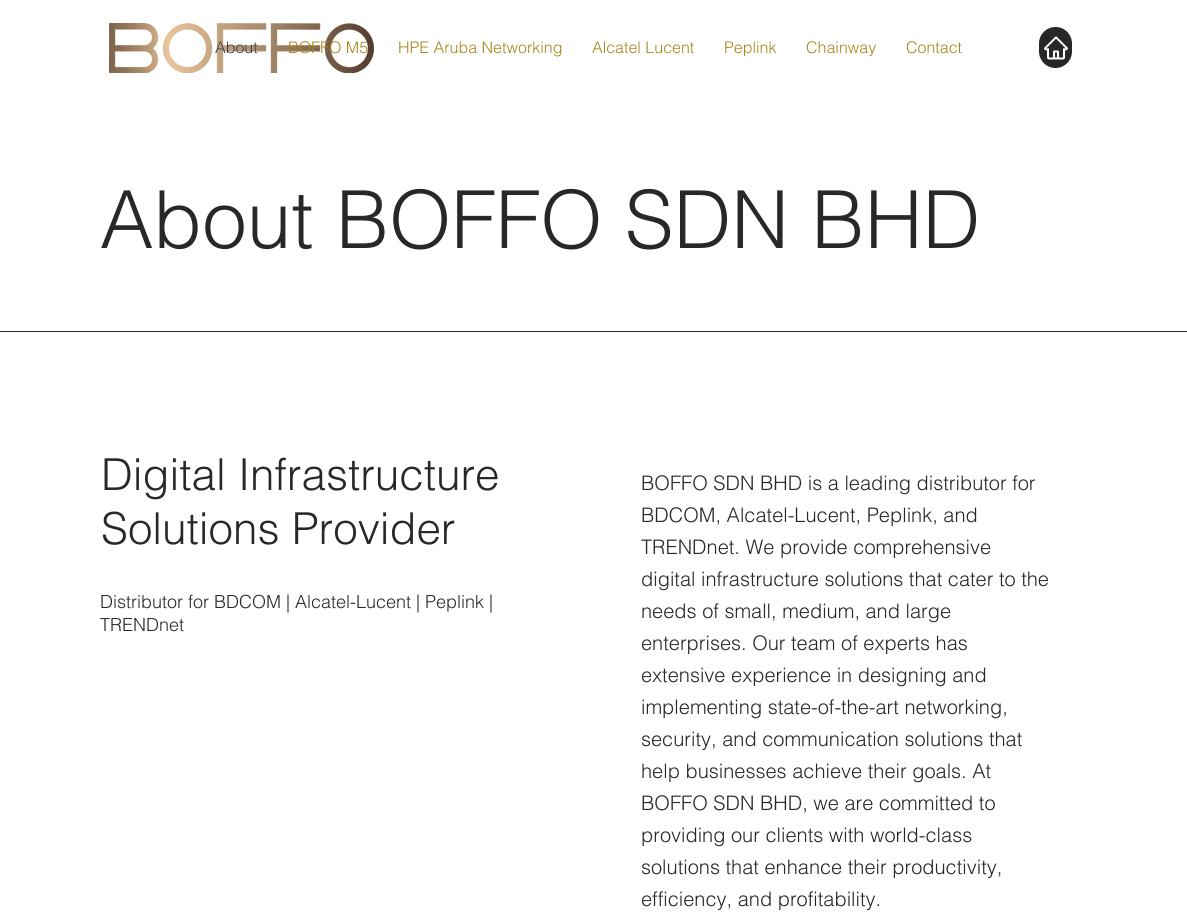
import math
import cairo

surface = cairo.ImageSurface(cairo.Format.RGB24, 1187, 916)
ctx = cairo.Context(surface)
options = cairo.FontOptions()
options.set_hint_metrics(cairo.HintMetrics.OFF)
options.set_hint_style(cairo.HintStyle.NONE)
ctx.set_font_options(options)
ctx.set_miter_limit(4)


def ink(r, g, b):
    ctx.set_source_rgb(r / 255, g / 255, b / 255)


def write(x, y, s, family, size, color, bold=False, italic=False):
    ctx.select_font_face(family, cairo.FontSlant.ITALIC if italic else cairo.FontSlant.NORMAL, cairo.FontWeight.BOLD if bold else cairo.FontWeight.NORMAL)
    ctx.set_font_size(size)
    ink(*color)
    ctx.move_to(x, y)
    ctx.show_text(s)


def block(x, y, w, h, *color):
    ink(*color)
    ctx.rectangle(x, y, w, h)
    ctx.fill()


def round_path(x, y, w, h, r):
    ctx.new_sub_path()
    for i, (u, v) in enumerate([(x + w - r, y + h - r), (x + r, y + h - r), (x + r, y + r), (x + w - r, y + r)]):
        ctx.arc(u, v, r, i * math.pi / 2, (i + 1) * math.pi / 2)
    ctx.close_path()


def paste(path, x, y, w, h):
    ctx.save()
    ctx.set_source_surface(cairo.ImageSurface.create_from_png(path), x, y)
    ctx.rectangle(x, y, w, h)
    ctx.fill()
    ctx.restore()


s1 = dict(family="helvetica Light", size=16, color=(59, 66, 76))
s2 = dict(family="helvetica Light", size=16, color=(166, 134, 25))
s3 = dict(family="helvetica Light", size=80, color=(40, 40, 40))
s4 = dict(family="helvetica Light", size=44, color=(40, 40, 40))
s5 = dict(family="helvetica Light", size=18, color=(40, 40, 40))
s6 = dict(family="helvetica Light", size=20, color=(40, 40, 40))

ink(255, 255, 255)
ctx.paint()
paste("pic1.png", 109, 23, 265, 50)
write(215, 53, "About", **s1)
write(288, 53, "BOFFO M5", **s2)
write(398, 53, "HPE Aruba Networking", **s2)
write(592, 53, "Alcatel Lucent", **s2)
write(724, 53, "Peplink", **s2)
write(806, 53, "Chainway", **s2)
write(906, 53, "Contact", **s2)
ink(40, 38, 38)
round_path(1039, 27, 33, 41, 16.5)
ctx.fill()
paste("pic2.png", 1044, 36, 24, 24)
write(100, 248, "About BOFFO SDN BHD", **s3)
block(0, 331, 1187, 1, 40, 40, 40)
write(101, 490, "Digital Infrastructure", **s4)
write(101, 544, "Solutions Provider", **s4)
write(100, 608, "Distributor for BDCOM | Alcatel-Lucent | Peplink |", **s5)
write(100, 631, "TRENDnet", **s5)
write(641, 490, "BOFFO SDN BHD is a leading distributor for", **s6)
write(641, 522, "BDCOM, Alcatel-Lucent, Peplink, and", **s6)
write(641, 554, "TRENDnet. We provide comprehensive", **s6)
write(641, 586, "digital infrastructure solutions that cater to the", **s6)
write(641, 618, "needs of small, medium, and large", **s6)
write(641, 650, "enterprises. Our team of experts has", **s6)
write(641, 682, "extensive experience in designing and", **s6)
write(641, 714, "implementing state-of-the-art networking,", **s6)
write(641, 746, "security, and communication solutions that", **s6)
write(641, 778, "help businesses achieve their goals. At", **s6)
write(641, 810, "BOFFO SDN BHD, we are committed to", **s6)
write(641, 842, "providing our clients with world-class", **s6)
write(641, 874, "solutions that enhance their productivity,", **s6)
write(641, 906, "efficiency, and profitability.", **s6)
surface.write_to_png("screenshot.png")
